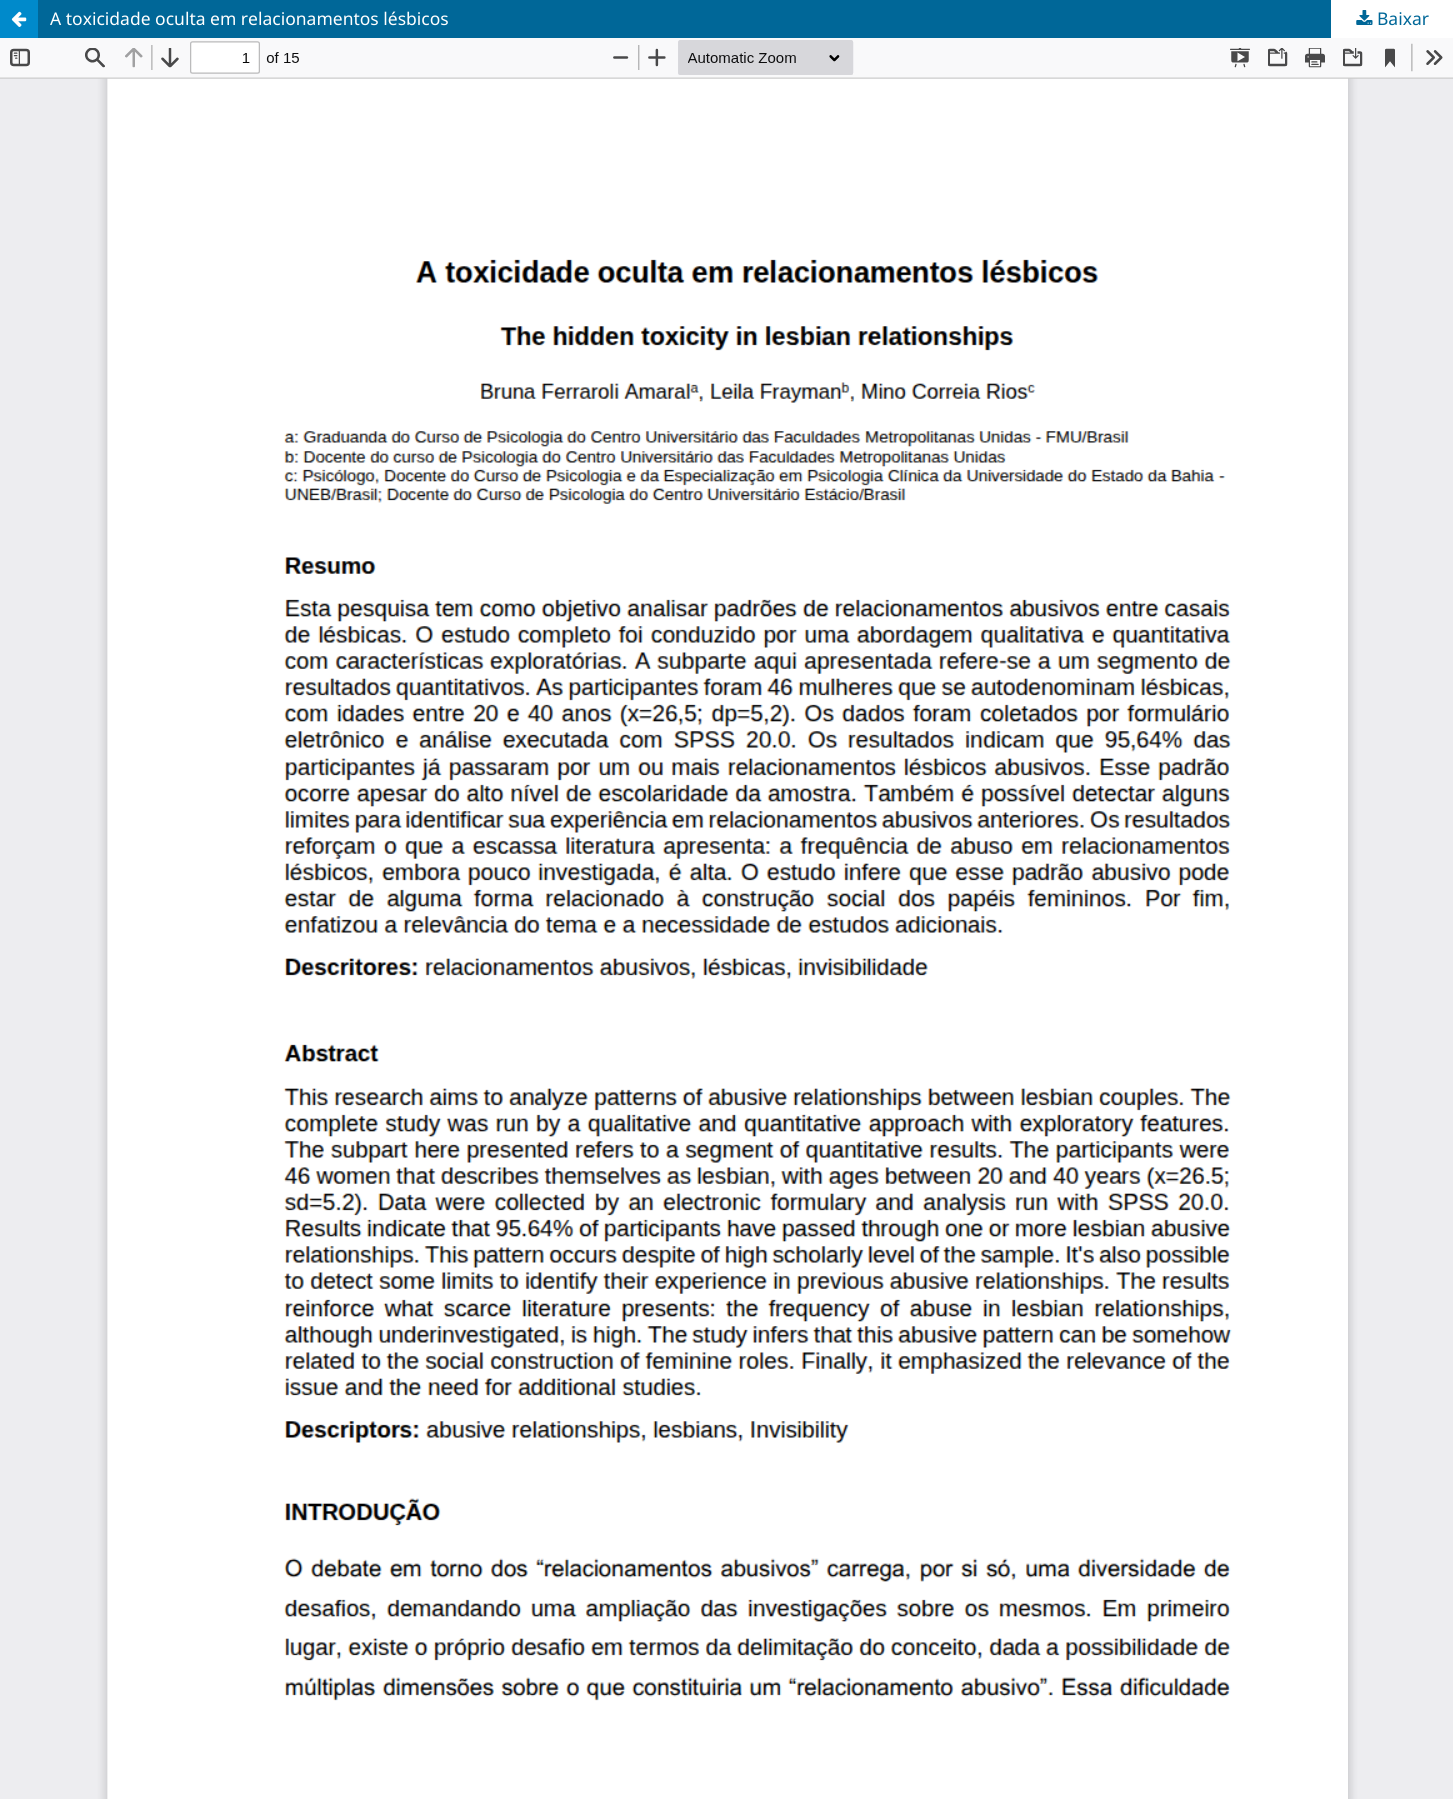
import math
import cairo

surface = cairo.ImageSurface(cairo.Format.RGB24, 1453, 1799)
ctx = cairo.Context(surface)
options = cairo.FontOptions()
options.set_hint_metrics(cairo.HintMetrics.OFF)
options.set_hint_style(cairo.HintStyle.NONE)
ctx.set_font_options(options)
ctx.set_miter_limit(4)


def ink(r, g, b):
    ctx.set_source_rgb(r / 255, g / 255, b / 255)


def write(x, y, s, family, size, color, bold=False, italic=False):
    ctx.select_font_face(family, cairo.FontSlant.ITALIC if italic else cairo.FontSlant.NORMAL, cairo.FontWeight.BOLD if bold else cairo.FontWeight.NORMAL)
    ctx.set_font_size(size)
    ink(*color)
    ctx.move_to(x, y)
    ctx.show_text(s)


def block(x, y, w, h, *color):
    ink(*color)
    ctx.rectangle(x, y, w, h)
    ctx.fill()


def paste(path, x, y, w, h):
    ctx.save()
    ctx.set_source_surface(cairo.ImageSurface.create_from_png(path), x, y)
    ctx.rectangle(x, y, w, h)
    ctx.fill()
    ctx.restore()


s1 = dict(family="Noto Sans", size=17.5, color=(255, 255, 255))
s2 = dict(family="Noto Sans", size=17.5, color=(0, 103, 152))

ink(255, 255, 255)
ctx.paint()
block(38, 0, 1293, 38, 0, 103, 152)
block(0, 0, 38, 38, 0, 138, 203)
paste("pic1.png", 11, 11, 16, 16)
write(50, 25, "A toxicidade oculta em relacionamentos lésbicos", **s1)
paste("pic2.png", 1356, 10, 17, 15)
write(1377, 25, "Baixar", **s2)
paste("pic3.png", 0, 38, 1453, 1761)
surface.write_to_png("screenshot.png")
